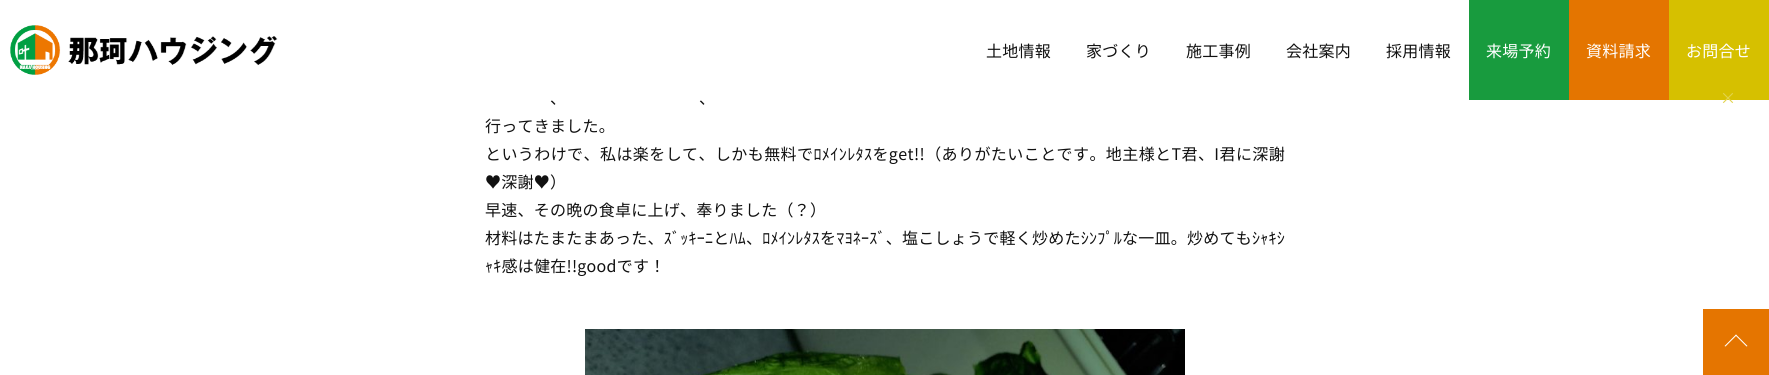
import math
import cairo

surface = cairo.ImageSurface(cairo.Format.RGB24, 1769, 375)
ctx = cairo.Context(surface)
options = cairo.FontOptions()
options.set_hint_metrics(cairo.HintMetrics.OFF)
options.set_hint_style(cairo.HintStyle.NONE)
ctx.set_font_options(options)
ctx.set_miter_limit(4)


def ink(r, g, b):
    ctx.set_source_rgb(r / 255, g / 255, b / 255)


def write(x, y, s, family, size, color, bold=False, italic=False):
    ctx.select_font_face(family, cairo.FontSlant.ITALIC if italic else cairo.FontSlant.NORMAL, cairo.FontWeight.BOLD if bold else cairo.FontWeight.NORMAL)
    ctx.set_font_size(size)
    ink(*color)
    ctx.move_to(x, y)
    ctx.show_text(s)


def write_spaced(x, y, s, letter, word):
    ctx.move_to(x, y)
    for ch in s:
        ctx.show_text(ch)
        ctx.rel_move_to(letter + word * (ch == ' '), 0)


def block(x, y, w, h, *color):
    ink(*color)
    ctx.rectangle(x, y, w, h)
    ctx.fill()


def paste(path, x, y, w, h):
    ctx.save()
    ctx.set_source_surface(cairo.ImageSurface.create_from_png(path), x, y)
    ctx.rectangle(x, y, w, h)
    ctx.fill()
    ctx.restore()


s1 = dict(family="Noto Sans JP", size=16, color=(17, 17, 17))
s2 = dict(family="Noto Sans JP", size=16, color=(226, 211, 77))

ink(255, 255, 255)
ctx.paint()
paste("pic1.png", 10, 25, 268, 50)
ctx.select_font_face("Noto Sans JP")
ctx.set_font_size(16)
ink(17, 17, 17)
write_spaced(986, 57, "土地情報", 0.25, 0)
write_spaced(1086, 57, "家づくり", 0.25, 0)
write_spaced(1186, 57, "施工事例", 0.25, 0)
write_spaced(1286, 57, "会社案内", 0.25, 0)
write_spaced(1386, 57, "採用情報", 0.25, 0)
block(1469, 0, 100, 100, 24, 155, 62)
ink(255, 255, 255)
write_spaced(1486, 57, "来場予約", 0.25, 0)
block(1569, 0, 100, 100, 228, 117, 0)
ink(255, 255, 255)
write_spaced(1586, 57, "資料請求", 0.25, 0)
block(1669, 0, 100, 100, 214, 192, 0)
ink(255, 255, 255)
write_spaced(1686, 57, "お問合せ", 0.25, 0)
write(550, 104, "、", **s1)
write(699, 104, "、", **s1)
write_spaced(485, 132, "行ってきました。", 0.25, 0)
write_spaced(485, 160, "というわけで、私は楽をして、しかも無料でﾛﾒｲﾝﾚﾀｽをget!!（ありがたいことです。地主様とT君、I君に深謝", 0.42, 0)
write_spaced(485, 188, "♥深謝♥）", 0.25, 0)
write_spaced(485, 216, "早速、その晩の食卓に上げ、奉りました（？）", 0.25, 0)
write_spaced(485, 244, "材料はたまたまあった、ｽﾞｯｷｰﾆとﾊﾑ、ﾛﾒｲﾝﾚﾀｽをﾏﾖﾈｰｽﾞ、塩こしょうで軽く炒めたｼﾝﾌﾟﾙな一皿。炒めてもｼｬｷｼ", 0.25, 0)
write_spaced(485, 272, "ｬｷ感は健在!!goodです！", 0.25, 0)
paste("pic2.png", 585, 329, 600, 46)
block(1703, 309, 66, 66, 229, 117, 0)
ink(255, 255, 255)
ctx.new_path()
ctx.move_to(1736.5, 335.5)
ctx.line_to(1725.5, 346.5)
ctx.line_to(1724.5, 346)
ctx.line_to(1736, 334.5)
ctx.close_path()
ctx.fill()
ctx.new_path()
ctx.move_to(1747.5, 346)
ctx.line_to(1746.5, 346.5)
ctx.line_to(1735.5, 335.5)
ctx.line_to(1736, 334.5)
ctx.close_path()
ctx.fill()
write(1720, 104, "×", **s2)
surface.write_to_png("screenshot.png")
